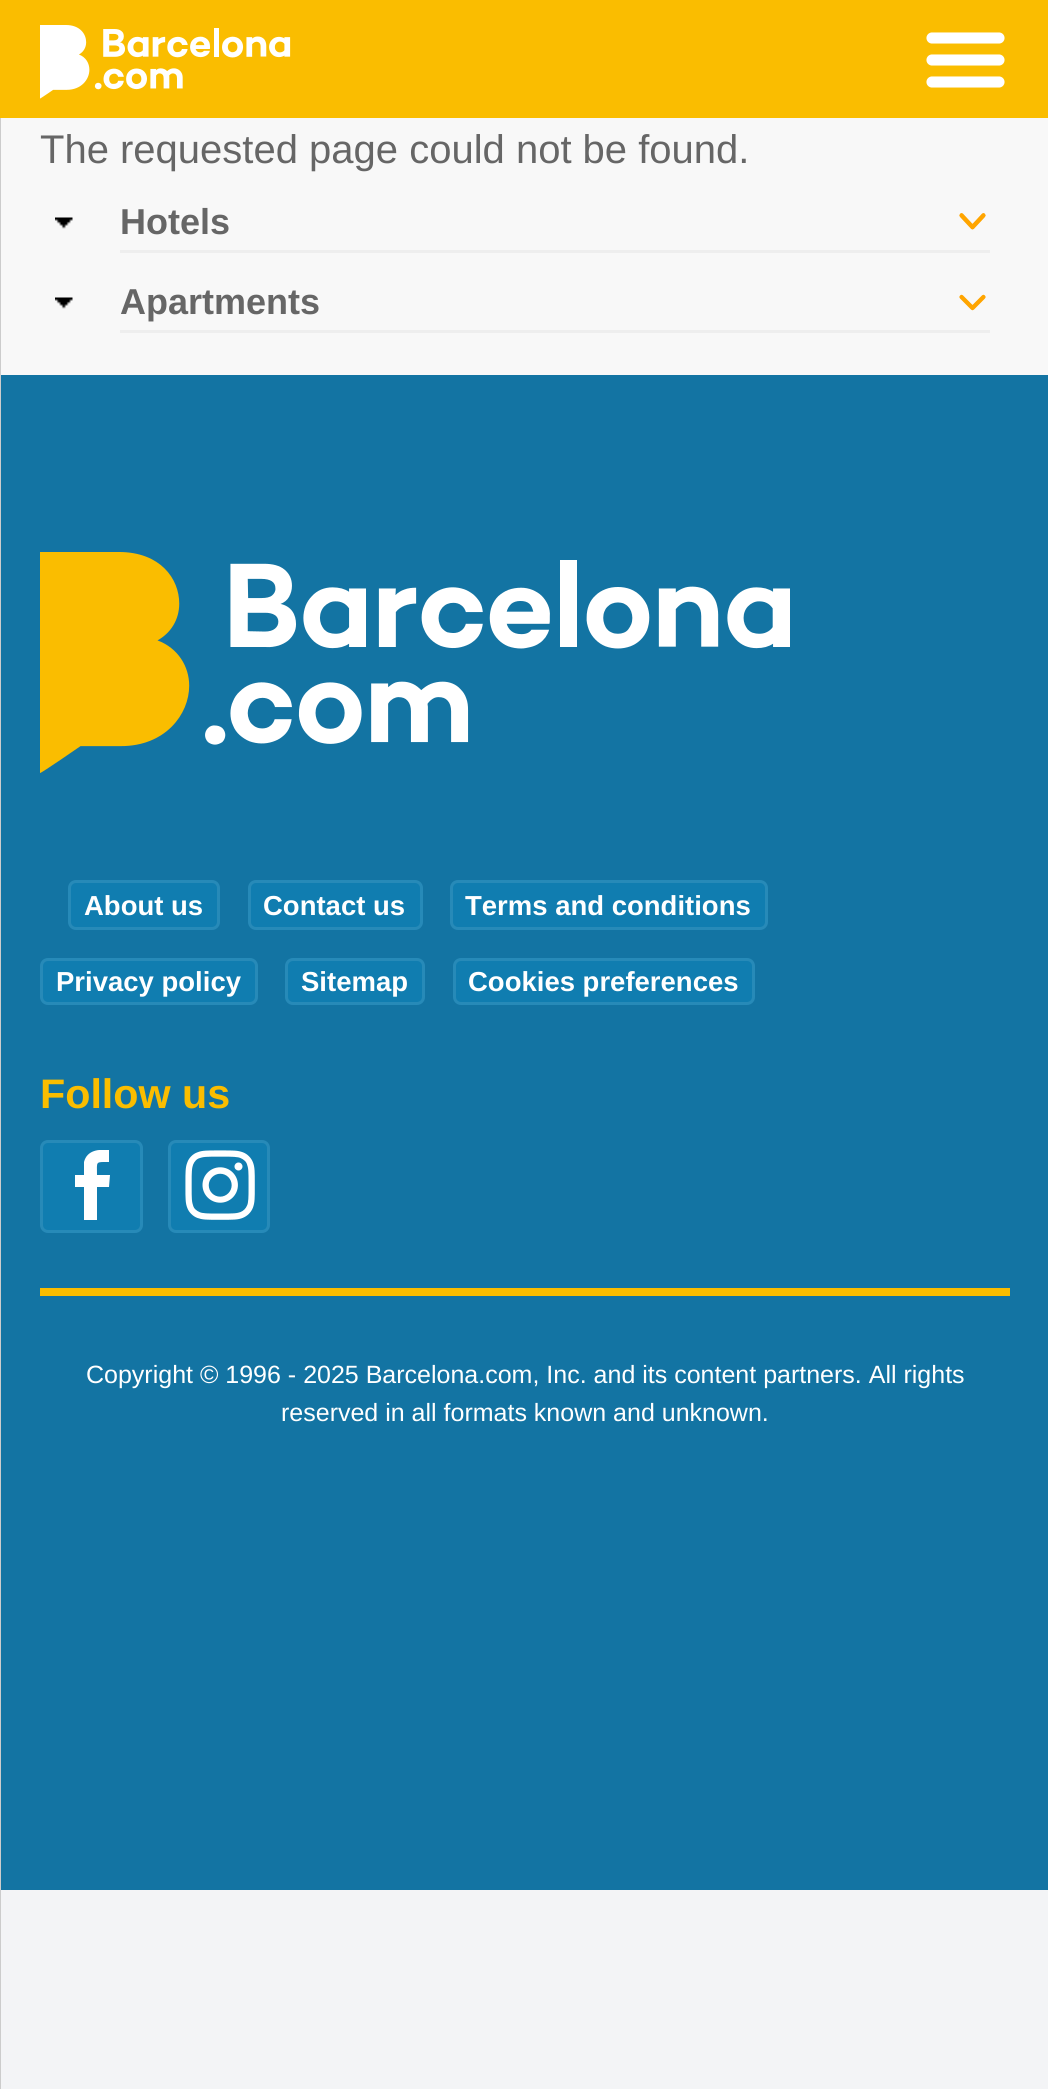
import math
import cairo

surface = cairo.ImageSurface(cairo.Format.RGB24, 1048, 2089)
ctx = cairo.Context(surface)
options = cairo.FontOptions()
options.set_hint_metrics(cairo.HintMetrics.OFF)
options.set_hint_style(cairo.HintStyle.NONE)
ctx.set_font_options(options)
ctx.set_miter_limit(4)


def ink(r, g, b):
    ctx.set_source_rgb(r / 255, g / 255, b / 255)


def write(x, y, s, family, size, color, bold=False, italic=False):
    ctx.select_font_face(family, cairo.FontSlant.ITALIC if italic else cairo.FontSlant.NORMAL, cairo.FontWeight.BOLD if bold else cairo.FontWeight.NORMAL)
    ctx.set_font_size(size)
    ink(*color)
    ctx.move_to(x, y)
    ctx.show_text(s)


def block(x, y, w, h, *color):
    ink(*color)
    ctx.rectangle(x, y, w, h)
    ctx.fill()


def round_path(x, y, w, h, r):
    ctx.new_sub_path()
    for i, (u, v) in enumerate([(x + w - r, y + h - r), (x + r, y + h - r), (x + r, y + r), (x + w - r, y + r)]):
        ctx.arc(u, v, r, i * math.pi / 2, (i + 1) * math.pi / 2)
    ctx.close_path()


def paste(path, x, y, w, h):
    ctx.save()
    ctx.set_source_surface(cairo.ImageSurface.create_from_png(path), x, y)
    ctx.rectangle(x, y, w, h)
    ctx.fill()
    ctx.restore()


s1 = dict(family="Liberation Sans", size=40, color=(102, 102, 102))
s2 = dict(family="Liberation Sans", size=36, color=(102, 102, 102), bold=True)
s3 = dict(family="Liberation Sans", size=27.5, color=(255, 255, 255), bold=True)
s4 = dict(family="Liberation Sans", size=41.25, color=(250, 189, 0), bold=True)
s5 = dict(family="Liberation Sans", size=25, color=(255, 255, 255))

ink(243, 244, 246)
ctx.paint()
block(0, 0, 1048, 118, 250, 189, 0)
paste("pic1.png", 40, 25, 251, 74)
ctx.new_path()
ctx.move_to(932, 38)
ctx.line_to(999, 38)
ctx.close_path()
ink(255, 255, 255)
ctx.set_line_width(11.1)
ctx.set_line_cap(cairo.LineCap.ROUND)
ctx.set_line_join(cairo.LineJoin.ROUND)
ctx.stroke()
ctx.new_path()
ctx.move_to(932, 60)
ctx.line_to(999, 60)
ctx.close_path()
ctx.stroke()
ctx.new_path()
ctx.move_to(932, 82)
ctx.line_to(999, 82)
ctx.close_path()
ctx.stroke()
block(0, 118, 1, 1971, 204, 204, 204)
block(1, 118, 1047, 257, 248, 248, 248)
write(40, 163, "The requested page could not be found.", **s1)
paste("pic2.png", 55, 217, 18, 12)
block(120, 250, 870, 3, 238, 238, 238)
write(120, 234, "Hotels", **s2)
paste("pic3.png", 959, 213, 27, 17)
paste("pic2.png", 55, 297, 18, 12)
block(120, 330, 870, 3, 238, 238, 238)
write(120, 314, "Apartments", **s2)
paste("pic4.png", 959, 294, 27, 17)
block(1, 375, 1047, 1515, 19, 116, 163)
block(40, 1288, 970, 8, 250, 189, 0)
paste("pic5.png", 40, 552, 750, 221)
ink(16, 125, 176)
round_path(68, 880, 152, 50, 8)
ctx.fill()
round_path(69.5, 881.5, 149, 47, 6.5)
ctx.set_source_rgba(1, 1, 1, 0.1)
ctx.set_line_width(3)
ctx.set_line_cap(cairo.LineCap.BUTT)
ctx.set_line_join(cairo.LineJoin.MITER)
ctx.stroke()
write(84, 915, "About us", **s3)
ink(16, 125, 176)
round_path(248, 880, 175, 50, 8)
ctx.fill()
round_path(249.5, 881.5, 172, 47, 6.5)
ctx.set_source_rgba(1, 1, 1, 0.1)
ctx.stroke()
write(263, 915, "Contact us", **s3)
ink(16, 125, 176)
round_path(450, 880, 318, 50, 8)
ctx.fill()
round_path(451.5, 881.5, 315, 47, 6.5)
ctx.set_source_rgba(1, 1, 1, 0.1)
ctx.stroke()
write(465, 915, "Terms and conditions", **s3)
ink(16, 125, 176)
round_path(40, 958, 218, 47, 8)
ctx.fill()
round_path(41.5, 959.5, 215, 44, 6.5)
ctx.set_source_rgba(1, 1, 1, 0.1)
ctx.stroke()
write(56, 991, "Privacy policy", **s3)
ink(16, 125, 176)
round_path(285, 958, 140, 47, 8)
ctx.fill()
round_path(286.5, 959.5, 137, 44, 6.5)
ctx.set_source_rgba(1, 1, 1, 0.1)
ctx.stroke()
write(301, 991, "Sitemap", **s3)
ink(16, 125, 176)
round_path(453, 958, 302, 47, 8)
ctx.fill()
round_path(454.5, 959.5, 299, 44, 6.5)
ctx.set_source_rgba(1, 1, 1, 0.1)
ctx.stroke()
write(468, 991, "Cookies preferences", **s3)
write(40, 1108, "Follow us", **s4)
ink(16, 125, 176)
round_path(40, 1140, 103, 93, 8)
ctx.fill()
round_path(41.5, 1141.5, 100, 90, 6.5)
ctx.set_source_rgba(1, 1, 1, 0.1)
ctx.stroke()
ctx.save()
ctx.rectangle(58, 1150, 70, 70)
ctx.clip()
ink(255, 255, 255)
ctx.new_path()
ctx.move_to(84, 1220)
ctx.line_to(84, 1187)
ctx.line_to(75, 1187)
ctx.line_to(75, 1175)
ctx.line_to(84, 1175)
ctx.line_to(84, 1162)
ctx.curve_to(87, 1150, 99, 1149, 109, 1150)
ctx.line_to(109, 1162)
ctx.curve_to(95, 1162, 97, 1161, 97, 1175)
ctx.line_to(110, 1175)
ctx.line_to(109, 1187)
ctx.line_to(97, 1187)
ctx.line_to(97, 1220)
ctx.close_path()
ctx.fill()
ctx.restore()
ink(16, 125, 176)
round_path(168, 1140, 102, 93, 8)
ctx.fill()
round_path(169.5, 1141.5, 99, 90, 6.5)
ctx.set_source_rgba(1, 1, 1, 0.1)
ctx.stroke()
paste("pic6.png", 185, 1150, 70, 70)
write(86, 1383, "Copyright © 1996 - 2025 Barcelona.com, Inc. and its content partners. All rights", **s5)
write(281, 1421, "reserved in all formats known and unknown.", **s5)
surface.write_to_png("screenshot.png")
